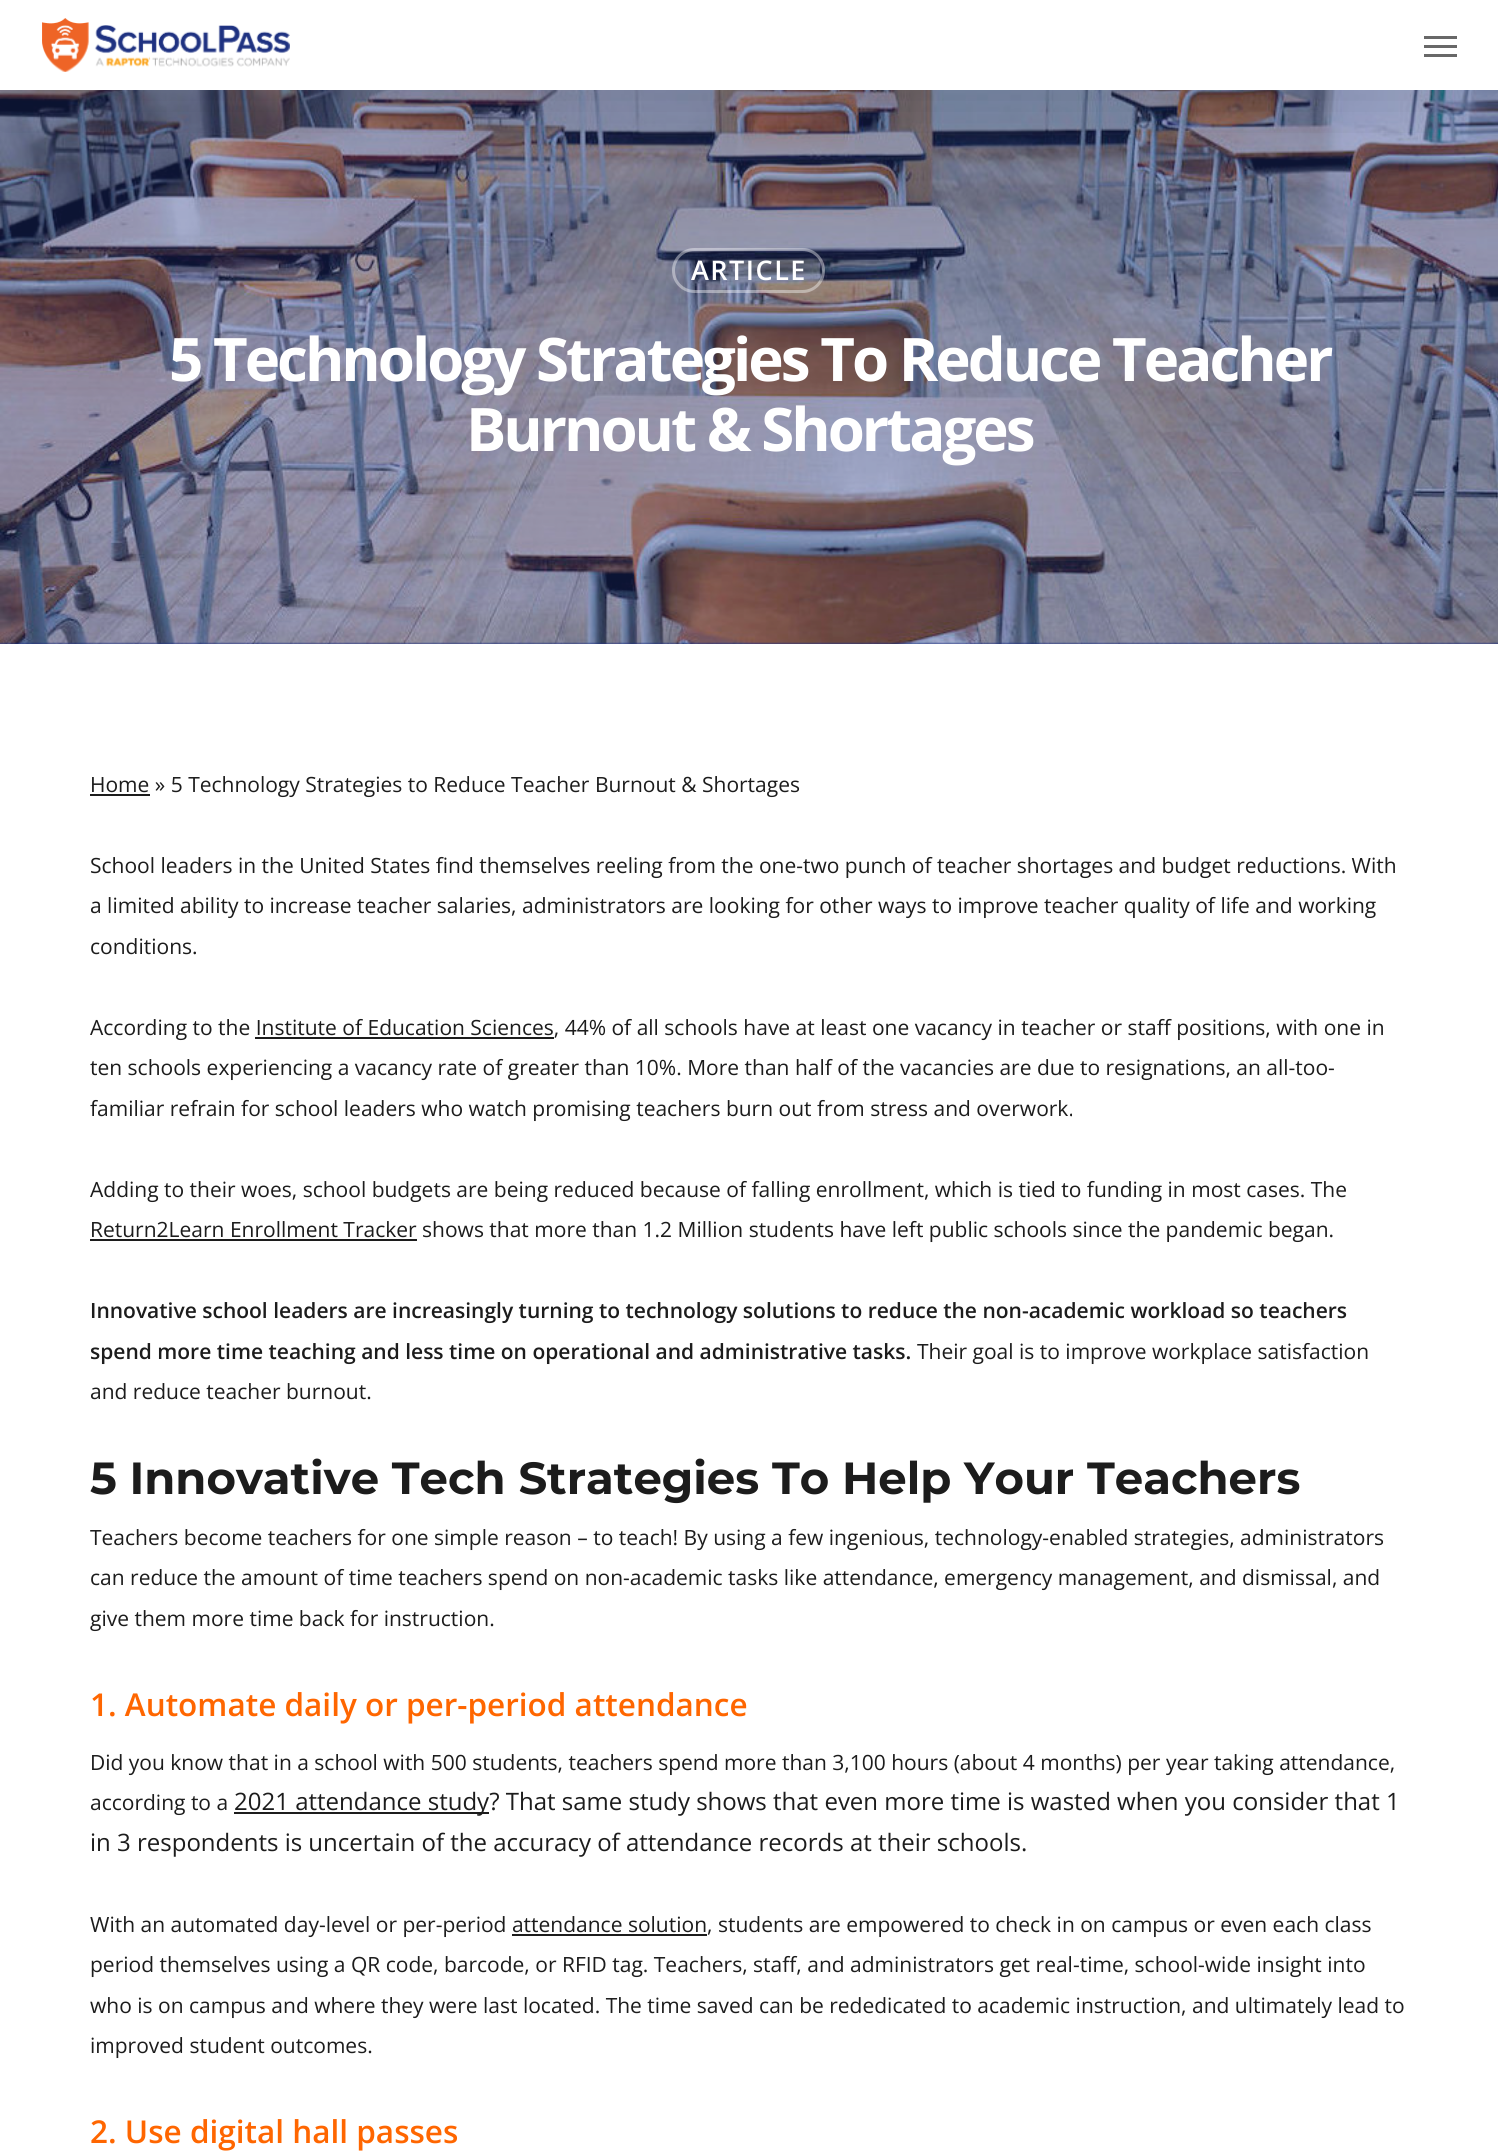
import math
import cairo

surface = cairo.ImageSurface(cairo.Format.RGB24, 1498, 2156)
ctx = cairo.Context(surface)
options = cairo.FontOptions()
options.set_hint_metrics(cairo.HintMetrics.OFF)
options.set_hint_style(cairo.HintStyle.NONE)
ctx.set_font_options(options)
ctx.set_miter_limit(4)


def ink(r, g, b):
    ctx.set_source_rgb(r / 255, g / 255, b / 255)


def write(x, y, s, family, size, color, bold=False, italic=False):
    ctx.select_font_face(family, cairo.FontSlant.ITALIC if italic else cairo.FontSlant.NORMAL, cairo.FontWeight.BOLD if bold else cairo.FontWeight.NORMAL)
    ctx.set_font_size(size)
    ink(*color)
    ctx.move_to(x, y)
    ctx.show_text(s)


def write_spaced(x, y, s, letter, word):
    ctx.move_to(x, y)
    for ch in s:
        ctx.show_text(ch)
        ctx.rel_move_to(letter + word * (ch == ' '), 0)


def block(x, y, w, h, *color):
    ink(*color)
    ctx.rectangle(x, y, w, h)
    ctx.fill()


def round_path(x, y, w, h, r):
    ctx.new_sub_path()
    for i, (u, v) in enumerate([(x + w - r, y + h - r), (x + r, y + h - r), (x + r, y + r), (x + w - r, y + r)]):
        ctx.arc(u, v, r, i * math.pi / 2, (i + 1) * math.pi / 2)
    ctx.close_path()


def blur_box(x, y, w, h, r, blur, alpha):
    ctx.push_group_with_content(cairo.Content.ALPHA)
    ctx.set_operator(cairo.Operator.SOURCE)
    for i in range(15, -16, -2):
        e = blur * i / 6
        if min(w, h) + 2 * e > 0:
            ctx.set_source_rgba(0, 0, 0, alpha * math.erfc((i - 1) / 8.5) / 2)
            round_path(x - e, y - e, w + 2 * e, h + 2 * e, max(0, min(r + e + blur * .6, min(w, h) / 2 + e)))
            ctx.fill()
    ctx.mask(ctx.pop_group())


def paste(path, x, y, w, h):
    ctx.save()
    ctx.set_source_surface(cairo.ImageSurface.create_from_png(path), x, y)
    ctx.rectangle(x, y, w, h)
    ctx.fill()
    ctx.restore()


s1 = dict(family="Open Sans", size=21, color=(28, 28, 28))
s2 = dict(family="Open Sans SemiBold", size=21, color=(28, 28, 28))
s3 = dict(family="Montserrat", size=45, color=(28, 28, 28), bold=True)
s4 = dict(family="Open Sans SemiBold", size=31.5, color=(255, 102, 0))
s5 = dict(family="Open Sans", size=24, color=(28, 28, 28))

ink(255, 255, 255)
ctx.paint()
block(0, 642, 1498, 2, 31, 49, 128)
paste("pic2.png", 0, 90, 1498, 554)
ctx.save()
ctx.rectangle(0, 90, 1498, 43)
ctx.clip()
ink(0, 0, 0)
blur_box(0, 5, 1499, 90, 0, 34, 0.15)
ctx.restore()
paste("pic1.png", 42, 18, 248, 54)
block(1424, 36, 33, 3, 104, 104, 104)
block(1424, 54, 33, 3, 104, 104, 104)
block(1424, 45, 33, 3, 104, 104, 104)
round_path(673.5, 249.5, 150, 42, 21)
ctx.set_source_rgba(1, 1, 1, 0.4)
ctx.set_line_width(3)
ctx.stroke()
ctx.select_font_face("Open Sans SemiBold")
ctx.set_font_size(27)
ink(255, 255, 255)
write_spaced(691, 280, "ARTICLE", 1.5, 0)
ctx.select_font_face("Open Sans", cairo.FontSlant.NORMAL, cairo.FontWeight.BOLD)
ctx.set_font_size(60)
write_spaced(169, 381, "5 Technology Strategies To Reduce Teacher", -3, 0)
write_spaced(466, 451, "Burnout & Shortages", -3, 0)
block(90, 794, 60, 2, 28, 28, 28)
write(90, 792, "Home » 5 Technology Strategies to Reduce Teacher Burnout & Shortages", **s1)
write(90, 873, "School leaders in the United States find themselves reeling from the one-two punch of teacher shortages and budget reductions. With", **s1)
write(90, 913, "a limited ability to increase teacher salaries, administrators are looking for other ways to improve teacher quality of life and working", **s1)
write(90, 954, "conditions.", **s1)
write(90, 1035, "According to the Institute of Education Sciences, 44% of all schools have at least one vacancy in teacher or staff positions, with one in", **s1)
block(255, 1037, 299, 2, 28, 28, 28)
write(90, 1075, "ten schools experiencing a vacancy rate of greater than 10%. More than half of the vacancies are due to resignations, an all-too-", **s1)
write(90, 1116, "familiar refrain for school leaders who watch promising teachers burn out from stress and overwork.", **s1)
write(90, 1197, "Adding to their woes, school budgets are being reduced because of falling enrollment, which is tied to funding in most cases. The", **s1)
block(90, 1239, 327, 2, 28, 28, 28)
write(90, 1237, "Return2Learn Enrollment Tracker shows that more than 1.2 Million students have left public schools since the pandemic began.", **s1)
write(90, 1318, "Innovative school leaders are increasingly turning to technology solutions to reduce the non-academic workload so teachers", **s2)
write(90, 1359, "spend more time teaching and less time on operational and administrative tasks.", **s2)
write(917, 1359, "Their goal is to improve workplace satisfaction", **s1)
write(90, 1399, "and reduce teacher burnout.", **s1)
write(90, 1494, "5 Innovative Tech Strategies To Help Your Teachers", **s3)
write(90, 1545, "Teachers become teachers for one simple reason – to teach! By using a few ingenious, technology-enabled strategies, administrators", **s1)
write(90, 1585, "can reduce the amount of time teachers spend on non-academic tasks like attendance, emergency management, and dismissal, and", **s1)
write(90, 1626, "give them more time back for instruction.", **s1)
write(90, 1716, "1. Automate daily or per-period attendance", **s4)
write(90, 1770, "Did you know that in a school with 500 students, teachers spend more than 3,100 hours (about 4 months) per year taking attendance,", **s1)
write(90, 1810, "according to a", **s1)
block(234, 1812, 255, 2, 28, 28, 28)
write(234, 1810, "2021 attendance study? That same study shows that even more time is wasted when you consider that 1", **s5)
write(90, 1851, "in 3 respondents is uncertain of the accuracy of attendance records at their schools.", **s5)
write(90, 1932, "With an automated day-level or per-period attendance solution, students are empowered to check in on campus or even each class", **s1)
block(512, 1934, 195, 2, 28, 28, 28)
write(90, 1972, "period themselves using a QR code, barcode, or RFID tag. Teachers, staff, and administrators get real-time, school-wide insight into", **s1)
write(90, 2013, "who is on campus and where they were last located. The time saved can be rededicated to academic instruction, and ultimately lead to", **s1)
write(90, 2053, "improved student outcomes.", **s1)
write(90, 2143, "2. Use digital hall passes", **s4)
surface.write_to_png("screenshot.png")
